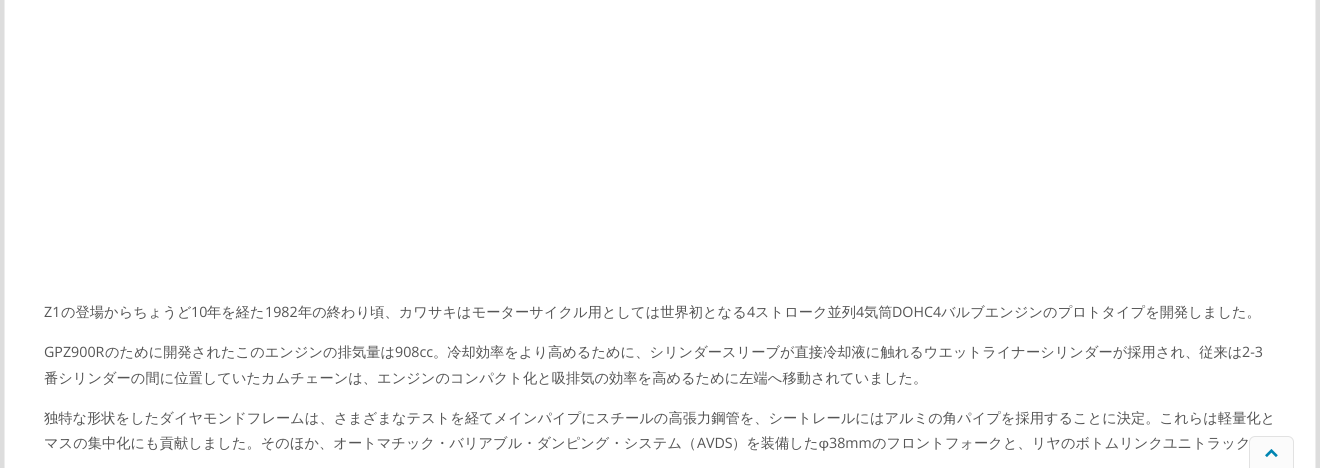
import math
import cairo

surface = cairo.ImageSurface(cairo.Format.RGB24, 1320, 468)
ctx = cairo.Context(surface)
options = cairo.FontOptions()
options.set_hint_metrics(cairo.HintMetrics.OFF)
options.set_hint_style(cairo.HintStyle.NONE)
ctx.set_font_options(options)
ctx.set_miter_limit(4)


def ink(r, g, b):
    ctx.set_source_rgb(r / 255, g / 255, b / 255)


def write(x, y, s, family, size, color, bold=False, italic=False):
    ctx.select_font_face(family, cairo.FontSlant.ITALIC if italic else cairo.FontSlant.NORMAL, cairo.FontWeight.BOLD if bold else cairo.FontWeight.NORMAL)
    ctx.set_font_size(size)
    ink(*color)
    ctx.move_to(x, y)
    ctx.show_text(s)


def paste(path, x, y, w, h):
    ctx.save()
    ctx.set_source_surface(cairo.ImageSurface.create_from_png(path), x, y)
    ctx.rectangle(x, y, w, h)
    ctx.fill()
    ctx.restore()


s1 = dict(family="Open Sans", size=14.25, color=(85, 85, 85))
s2 = dict(family="WenQuanYi Zen Hei Medium", size=14.25, color=(85, 85, 85))

ink(221, 221, 221)
ctx.paint()
ink(255, 255, 255)
ctx.rectangle(4.5, -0.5, 1311, 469)
ctx.fill_preserve()
ink(237, 237, 237)
ctx.set_line_width(1)
ctx.stroke()
write(44, 317, "Z1", **s1)
write(61, 317, "の登場からちょうど", **s2)
write(191, 317, "10", **s1)
write(207, 317, "年を経た", **s2)
write(265, 317, "1982", **s1)
write(298, 317, "年の終わり頃、カワサキはモーターサイクル用としては世界初となる", **s2)
write(747, 317, "4", **s1)
write(755, 317, "ストローク並列", **s2)
write(856, 317, "4", **s1)
write(864, 317, "気筒", **s2)
write(892, 317, "DOHC4", **s1)
write(941, 317, "バルブエンジンのプロトタイプを開発しました。", **s2)
write(44, 357, "GPZ900R", **s1)
write(105, 357, "のために開発されたこのエンジンの排気量は", **s2)
write(395, 357, "908cc", **s1)
write(433, 357, "。冷却効率をより高めるために、シリンダースリーブが直接冷却液に触れるウエットライナーシリンダーが採用され、従来は", **s2)
write(1242, 357, "2-3", **s1)
write(44, 383, "番シリンダーの間に位置していたカムチェーンは、エンジンのコンパクト化と吸排気の効率を高めるために左端へ移動されていました。", **s2)
write(44, 423, "独特な形状をしたダイヤモンドフレームは、さまざまなテストを経てメインパイプにスチールの高張力鋼管を、シートレールにはアルミの角パイプを採用することに決定。これらは軽量化と", **s2)
write(44, 448, "マスの集中化にも貢献しました。そのほか、オートマチック・バリアブル・ダンピング・システム（", **s2)
write(697, 448, "AVDS", **s1)
write(732, 448, "）を装備したφ", **s2)
write(829, 448, "38mm", **s1)
write(872, 448, "のフロントフォークと、リヤのボトムリンクユニトラック", **s2)
ctx.set_source_rgba(0.98, 0.98, 0.98, 0.8)
ctx.new_path()
ctx.move_to(1255, 436.5)
ctx.line_to(1288, 436.5)
ctx.curve_to(1291, 436.5, 1293.5, 439, 1293.5, 442)
ctx.line_to(1293.5, 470.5)
ctx.line_to(1249.5, 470.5)
ctx.line_to(1249.5, 442)
ctx.curve_to(1249.5, 439, 1252, 436.5, 1255, 436.5)
ctx.close_path()
ctx.fill_preserve()
ink(226, 226, 226)
ctx.stroke()
paste("pic1.png", 1265, 449, 13, 9)
surface.write_to_png("screenshot.png")
